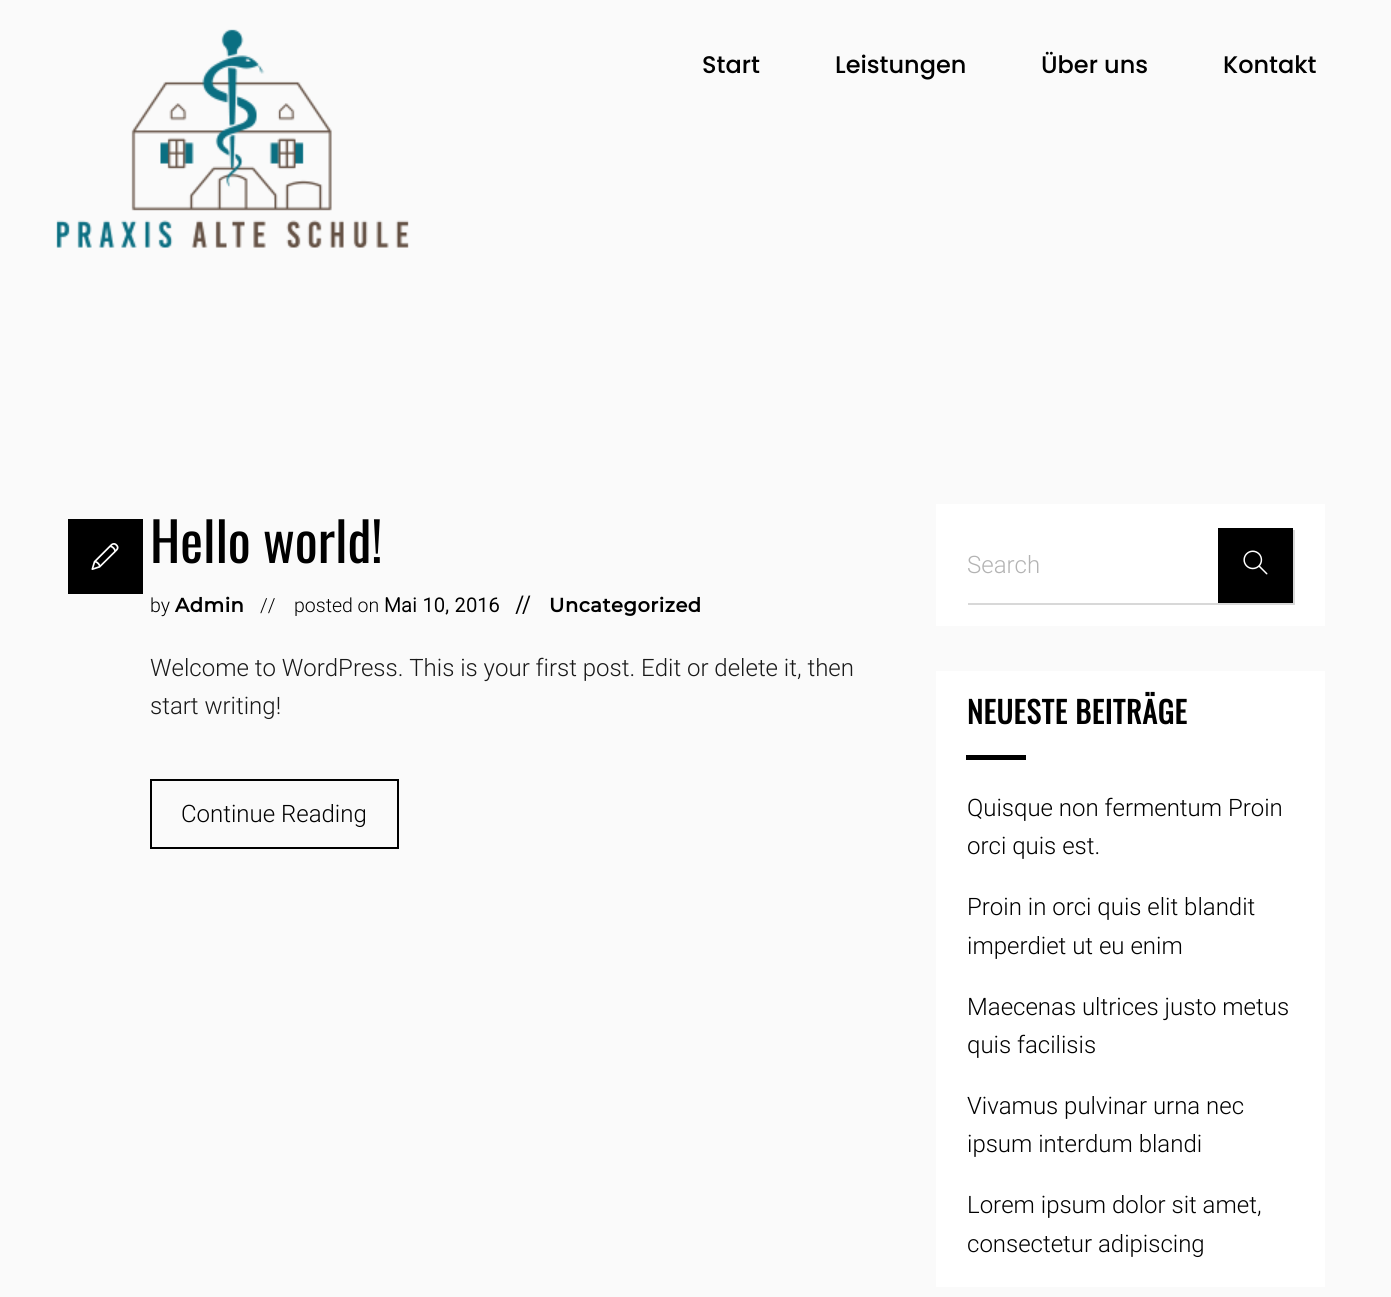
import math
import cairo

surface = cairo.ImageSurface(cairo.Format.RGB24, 1391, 1297)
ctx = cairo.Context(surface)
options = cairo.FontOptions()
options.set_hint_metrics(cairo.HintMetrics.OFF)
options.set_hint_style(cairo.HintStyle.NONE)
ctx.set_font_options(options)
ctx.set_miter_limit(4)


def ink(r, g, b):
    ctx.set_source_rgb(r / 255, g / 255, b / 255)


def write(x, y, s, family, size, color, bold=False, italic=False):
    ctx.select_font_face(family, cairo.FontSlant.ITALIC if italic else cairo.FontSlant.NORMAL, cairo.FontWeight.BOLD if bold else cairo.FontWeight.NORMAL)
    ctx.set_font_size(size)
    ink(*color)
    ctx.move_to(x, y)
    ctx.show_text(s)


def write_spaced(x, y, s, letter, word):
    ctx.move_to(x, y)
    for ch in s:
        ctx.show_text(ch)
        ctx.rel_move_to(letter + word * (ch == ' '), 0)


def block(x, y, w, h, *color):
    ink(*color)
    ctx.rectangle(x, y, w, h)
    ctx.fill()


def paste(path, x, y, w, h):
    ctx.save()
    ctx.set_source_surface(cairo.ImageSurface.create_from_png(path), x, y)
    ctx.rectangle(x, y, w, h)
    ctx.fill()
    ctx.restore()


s1 = dict(family="Poppins Medium", size=24, color=(0, 0, 0))
s2 = dict(family="Oswald", size=54, color=(0, 0, 0))
s3 = dict(family="Roboto Light", size=19.5, color=(0, 0, 0))
s4 = dict(family="Montserrat Medium", size=19.5, color=(0, 0, 0))
s5 = dict(family="Roboto Light", size=24, color=(25, 25, 25))
s6 = dict(family="Roboto Light", size=24, color=(0, 0, 0))
s7 = dict(family="Roboto Light", size=24, color=(179, 179, 179))

ink(250, 250, 250)
ctx.paint()
paste("pic1.png", 56, 29, 353, 219)
write(702, 73, "Start", **s1)
write(835, 73, "Leistungen", **s1)
write(1041, 73, "Über uns", **s1)
write(1223, 73, "Kontakt", **s1)
block(68, 519, 75, 75, 0, 0, 0)
paste("pic2.png", 91, 543, 28, 27)
write(150, 563, "Hello world!", **s2)
write(150, 612, "by", **s3)
ctx.select_font_face("Montserrat", cairo.FontSlant.NORMAL, cairo.FontWeight.BOLD)
write_spaced(175, 612, "Admin", 0.5, 0)
write(260, 612, "//", **s3)
write(294, 612, "posted on", **s3)
ctx.select_font_face("Roboto", cairo.FontSlant.NORMAL, cairo.FontWeight.BOLD)
write_spaced(384, 612, "Mai 10, 2016", 0.5, 0)
write(516, 612, "//", **s4)
ctx.select_font_face("Montserrat", cairo.FontSlant.NORMAL, cairo.FontWeight.BOLD)
write_spaced(549, 612, "Uncategorized", 0.5, 0)
write(150, 676, "Welcome to WordPress. This is your first post. Edit or delete it, then", **s5)
write(150, 714, "start writing!", **s5)
ctx.rectangle(151, 780, 247, 68)
ink(0, 0, 0)
ctx.stroke()
write(181, 822, "Continue Reading", **s6)
block(936, 504, 389, 122, 255, 255, 255)
ink(216, 216, 216)
ctx.new_path()
ctx.move_to(968, 603)
ctx.line_to(968, 605)
ctx.line_to(1295, 605)
ctx.line_to(1295, 530)
ctx.line_to(1293, 530)
ctx.line_to(1293, 603)
ctx.close_path()
ctx.fill()
write(967, 573, "Search", **s7)
block(1218, 528, 75, 75, 0, 0, 0)
paste("pic3.png", 1243, 550, 25, 25)
block(936, 671, 389, 616, 255, 255, 255)
ctx.select_font_face("Oswald", cairo.FontSlant.NORMAL, cairo.FontWeight.BOLD)
ctx.set_font_size(30)
ink(0, 0, 0)
write_spaced(967, 724, "NEUESTE BEITRÄGE", 0.75, 0)
block(966, 755, 60, 5, 0, 0, 0)
write(967, 816, "Quisque non fermentum Proin", **s6)
write(967, 854, "orci quis est.", **s6)
write(967, 915, "Proin in orci quis elit blandit", **s6)
write(967, 954, "imperdiet ut eu enim", **s6)
write(967, 1015, "Maecenas ultrices justo metus", **s6)
write(967, 1053, "quis facilisis", **s6)
write(967, 1114, "Vivamus pulvinar urna nec", **s6)
write(967, 1152, "ipsum interdum blandi", **s6)
write(967, 1213, "Lorem ipsum dolor sit amet,", **s6)
write(967, 1252, "consectetur adipiscing", **s6)
surface.write_to_png("screenshot.png")
